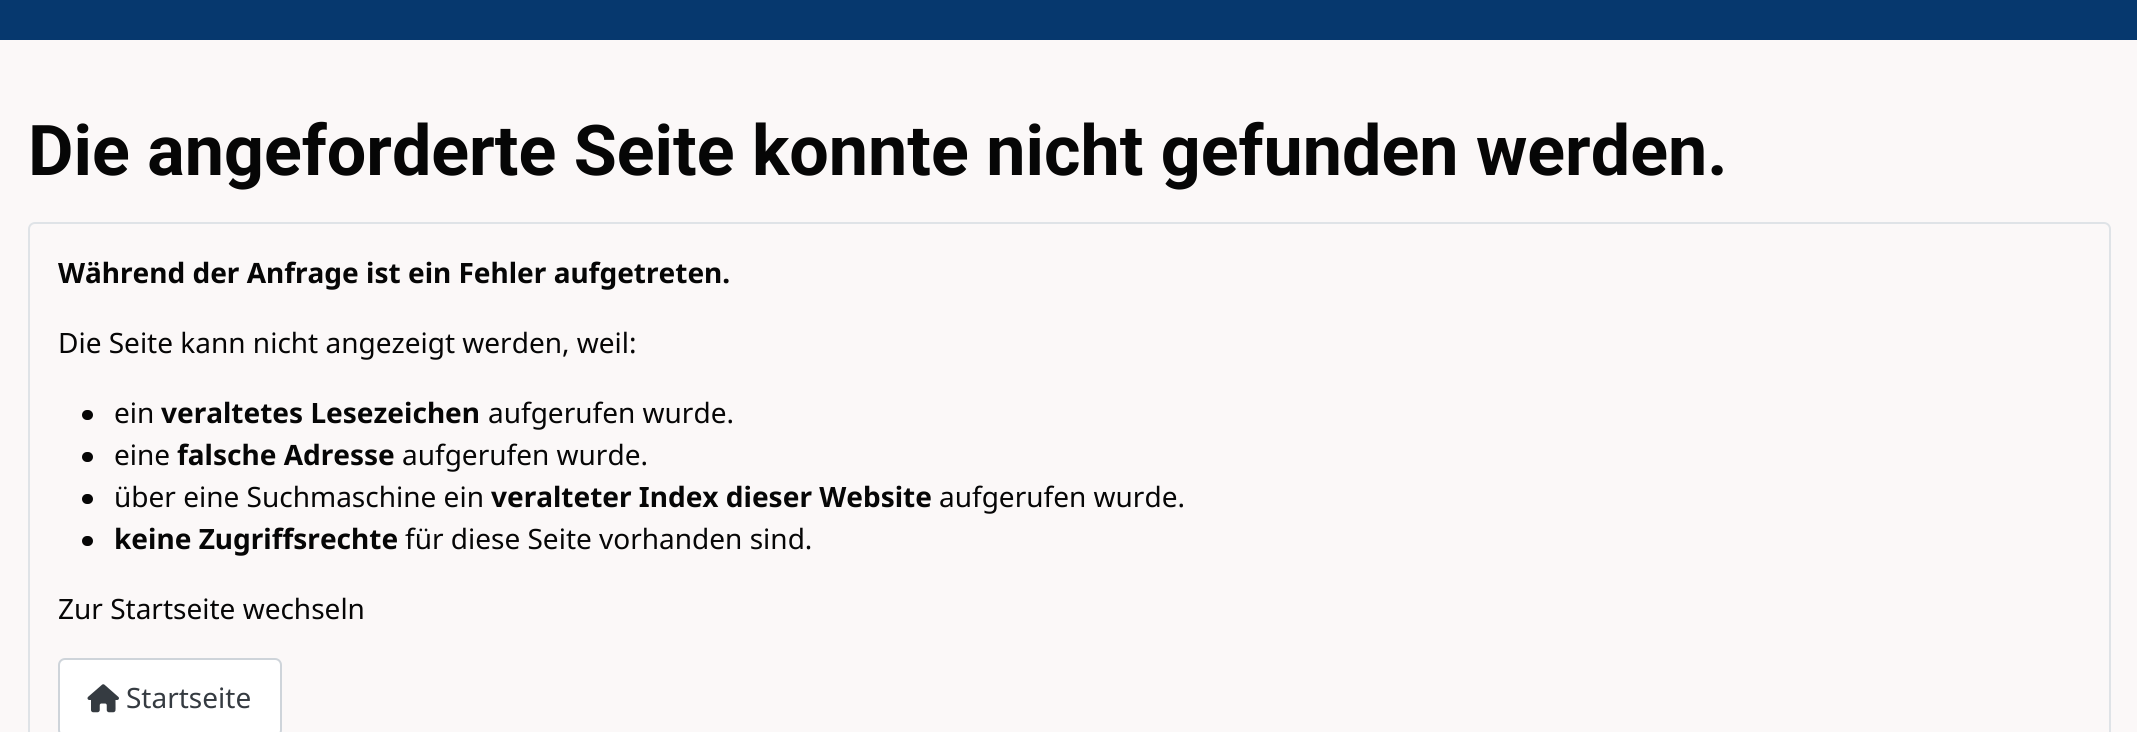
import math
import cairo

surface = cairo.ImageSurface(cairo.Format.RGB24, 2137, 732)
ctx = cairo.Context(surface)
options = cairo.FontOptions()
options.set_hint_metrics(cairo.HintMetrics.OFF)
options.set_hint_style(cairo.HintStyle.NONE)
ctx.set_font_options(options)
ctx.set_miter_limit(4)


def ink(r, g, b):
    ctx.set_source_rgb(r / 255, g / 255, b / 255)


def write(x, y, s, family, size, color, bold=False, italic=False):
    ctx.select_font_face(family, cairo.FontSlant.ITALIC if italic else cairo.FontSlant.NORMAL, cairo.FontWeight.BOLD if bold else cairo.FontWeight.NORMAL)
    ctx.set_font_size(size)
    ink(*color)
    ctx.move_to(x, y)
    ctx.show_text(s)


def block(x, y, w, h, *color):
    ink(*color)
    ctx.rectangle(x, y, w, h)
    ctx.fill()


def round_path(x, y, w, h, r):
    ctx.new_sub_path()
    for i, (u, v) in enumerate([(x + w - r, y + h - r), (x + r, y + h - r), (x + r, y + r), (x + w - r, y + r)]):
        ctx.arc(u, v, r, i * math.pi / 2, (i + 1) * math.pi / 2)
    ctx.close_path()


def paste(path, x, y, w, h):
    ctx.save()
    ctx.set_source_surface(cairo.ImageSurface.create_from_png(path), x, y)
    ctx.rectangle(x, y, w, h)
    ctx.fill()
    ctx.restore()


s1 = dict(family="Roboto", size=70, color=(6, 6, 6), bold=True)
s2 = dict(family="Noto Sans", size=28, color=(6, 6, 6), bold=True)
s3 = dict(family="Noto Sans", size=28, color=(6, 6, 6))
s4 = dict(family="Noto Sans", size=28, color=(53, 59, 65))

ink(251, 248, 248)
ctx.paint()
block(0, 0, 2137, 40, 6, 56, 110)
write(28, 175, "Die angeforderte Seite konnte nicht gefunden werden.", **s1)
round_path(29, 223, 2081, 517, 6)
ink(223, 227, 231)
ctx.stroke()
write(58, 283, "Während der Anfrage ist ein Fehler aufgetreten.", **s2)
write(58, 353, "Die Seite kann nicht angezeigt werden, weil:", **s3)
round_path(82, 410, 11, 10, 5)
ctx.fill()
write(114, 423, "ein", **s3)
write(161, 423, "veraltetes Lesezeichen", **s2)
write(488, 423, "aufgerufen wurde.", **s3)
round_path(82, 452, 11, 10, 5)
ctx.fill()
write(114, 465, "eine", **s3)
write(177, 465, "falsche Adresse", **s2)
write(402, 465, "aufgerufen wurde.", **s3)
round_path(82, 494, 11, 10, 5)
ctx.fill()
write(114, 507, "über eine Suchmaschine ein", **s3)
write(491, 507, "veralteter Index dieser Website", **s2)
write(939, 507, "aufgerufen wurde.", **s3)
round_path(82, 536, 11, 10, 5)
ctx.fill()
write(114, 549, "keine Zugriffsrechte", **s2)
write(405, 549, "für diese Seite vorhanden sind.", **s3)
write(58, 619, "Zur Startseite wechseln", **s3)
ink(255, 255, 255)
round_path(59, 659, 222, 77, 6)
ctx.fill_preserve()
ink(206, 212, 218)
ctx.stroke()
paste("pic1.png", 87, 684, 32, 29)
write(126, 708, "Startseite", **s4)
surface.write_to_png("screenshot.png")
